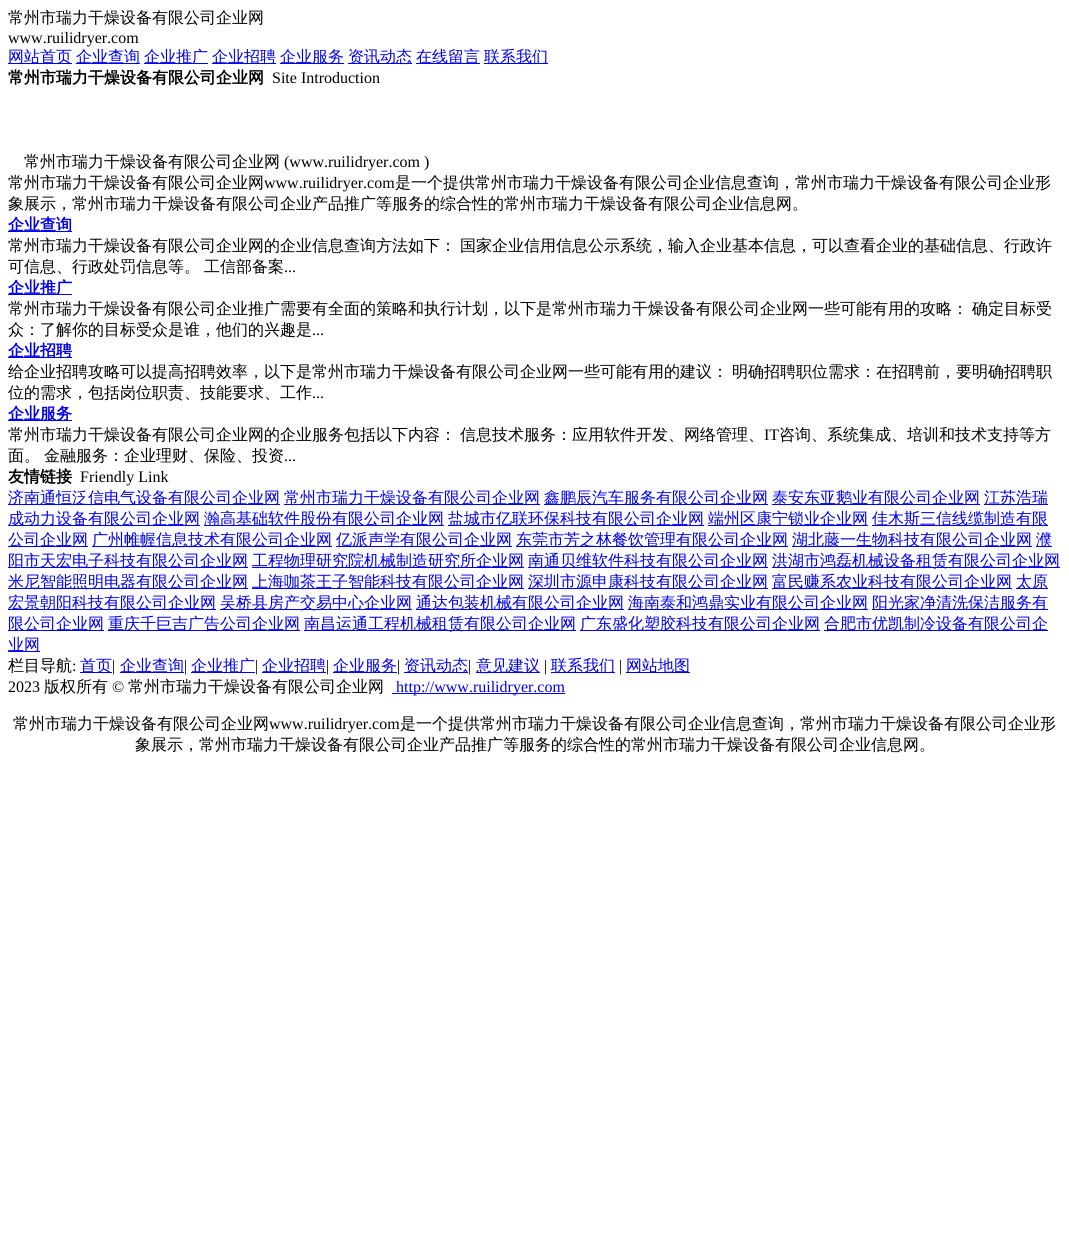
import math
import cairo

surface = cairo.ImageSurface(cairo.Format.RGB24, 1069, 1255)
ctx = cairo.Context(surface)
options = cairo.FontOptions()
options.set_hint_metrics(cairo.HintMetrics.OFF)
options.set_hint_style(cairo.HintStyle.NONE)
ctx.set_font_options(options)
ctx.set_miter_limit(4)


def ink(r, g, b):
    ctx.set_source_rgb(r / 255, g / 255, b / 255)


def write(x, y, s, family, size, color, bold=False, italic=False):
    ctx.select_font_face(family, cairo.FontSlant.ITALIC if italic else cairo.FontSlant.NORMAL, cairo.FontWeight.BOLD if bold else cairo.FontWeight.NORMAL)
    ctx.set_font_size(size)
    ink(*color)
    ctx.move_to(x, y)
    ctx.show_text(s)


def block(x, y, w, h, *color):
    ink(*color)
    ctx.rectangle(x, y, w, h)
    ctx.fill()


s1 = dict(family="WenQuanYi Zen Hei Medium", size=16, color=(0, 0, 0))
s2 = dict(family="Liberation Serif", size=16, color=(0, 0, 0))
s3 = dict(family="WenQuanYi Zen Hei Medium", size=16, color=(0, 0, 238))
s4 = dict(family="WenQuanYi Zen Hei", size=16, color=(0, 0, 0), bold=True)
s5 = dict(family="WenQuanYi Zen Hei", size=16, color=(0, 0, 238), bold=True)
s6 = dict(family="Liberation Serif", size=16, color=(0, 0, 238))

ink(255, 255, 255)
ctx.paint()
write(8, 23, "常州市瑞力干燥设备有限公司企业网", **s1)
write(8, 43, "www.ruilidryer.com", **s2)
block(8, 63, 64, 1, 0, 0, 238)
write(8, 62, "网站首页", **s3)
block(76, 63, 64, 1, 0, 0, 238)
write(76, 62, "企业查询", **s3)
block(144, 63, 64, 1, 0, 0, 238)
write(144, 62, "企业推广", **s3)
block(212, 63, 64, 1, 0, 0, 238)
write(212, 62, "企业招聘", **s3)
block(280, 63, 64, 1, 0, 0, 238)
write(280, 62, "企业服务", **s3)
block(348, 63, 64, 1, 0, 0, 238)
write(348, 62, "资讯动态", **s3)
block(416, 63, 64, 1, 0, 0, 238)
write(416, 62, "在线留言", **s3)
block(484, 63, 64, 1, 0, 0, 238)
write(484, 62, "联系我们", **s3)
write(8, 83, "常州市瑞力干燥设备有限公司企业网", **s4)
write(272, 83, "Site Introduction", **s2)
write(24, 167, "常州市瑞力干燥设备有限公司企业网", **s1)
write(284, 167, "(www.ruilidryer.com )", **s2)
write(8, 188, "常州市瑞力干燥设备有限公司企业网", **s1)
write(264, 188, "www.ruilidryer.com", **s2)
write(395, 188, "是一个提供常州市瑞力干燥设备有限公司企业信息查询，常州市瑞力干燥设备有限公司企业形", **s1)
write(8, 209, "象展示，常州市瑞力干燥设备有限公司企业产品推广等服务的综合性的常州市瑞力干燥设备有限公司企业信息网。", **s1)
block(8, 231, 64, 1, 0, 0, 238)
write(8, 230, "企业查询", **s5)
write(8, 251, "常州市瑞力干燥设备有限公司企业网的企业信息查询方法如下：", **s1)
write(460, 251, "国家企业信用信息公示系统，输入企业基本信息，可以查看企业的基础信息、行政许", **s1)
write(8, 272, "可信息、行政处罚信息等。", **s1)
write(204, 272, "工信部备案", **s1)
write(284, 272, "...", **s2)
block(8, 294, 64, 1, 0, 0, 238)
write(8, 293, "企业推广", **s5)
write(8, 314, "常州市瑞力干燥设备有限公司企业推广需要有全面的策略和执行计划，以下是常州市瑞力干燥设备有限公司企业网一些可能有用的攻略：", **s1)
write(972, 314, "确定目标受", **s1)
write(8, 335, "众：了解你的目标受众是谁，他们的兴趣是", **s1)
write(312, 335, "...", **s2)
block(8, 357, 64, 1, 0, 0, 238)
write(8, 356, "企业招聘", **s5)
write(8, 377, "给企业招聘攻略可以提高招聘效率，以下是常州市瑞力干燥设备有限公司企业网一些可能有用的建议：", **s1)
write(732, 377, "明确招聘职位需求：在招聘前，要明确招聘职", **s1)
write(8, 398, "位的需求，包括岗位职责、技能要求、工作", **s1)
write(312, 398, "...", **s2)
block(8, 420, 64, 1, 0, 0, 238)
write(8, 419, "企业服务", **s5)
write(8, 440, "常州市瑞力干燥设备有限公司企业网的企业服务包括以下内容：", **s1)
write(460, 440, "信息技术服务：应用软件开发、网络管理、", **s1)
write(764, 440, "IT", **s2)
write(779, 440, "咨询、系统集成、培训和技术支持等方", **s1)
write(8, 461, "面。", **s1)
write(44, 461, "金融服务：企业理财、保险、投资", **s1)
write(284, 461, "...", **s2)
write(8, 482, "友情链接", **s4)
write(80, 482, "Friendly Link", **s2)
block(8, 504, 272, 1, 0, 0, 238)
write(8, 503, "济南通恒泛信电气设备有限公司企业网", **s3)
block(284, 504, 256, 1, 0, 0, 238)
write(284, 503, "常州市瑞力干燥设备有限公司企业网", **s3)
block(544, 504, 224, 1, 0, 0, 238)
write(544, 503, "鑫鹏辰汽车服务有限公司企业网", **s3)
block(772, 504, 208, 1, 0, 0, 238)
write(772, 503, "泰安东亚鹅业有限公司企业网", **s3)
block(984, 504, 64, 1, 0, 0, 238)
write(984, 503, "江苏浩瑞", **s3)
block(8, 525, 192, 1, 0, 0, 238)
write(8, 524, "成动力设备有限公司企业网", **s3)
block(204, 525, 240, 1, 0, 0, 238)
write(204, 524, "瀚高基础软件股份有限公司企业网", **s3)
block(448, 525, 256, 1, 0, 0, 238)
write(448, 524, "盐城市亿联环保科技有限公司企业网", **s3)
block(708, 525, 160, 1, 0, 0, 238)
write(708, 524, "端州区康宁锁业企业网", **s3)
block(872, 525, 176, 1, 0, 0, 238)
write(872, 524, "佳木斯三信线缆制造有限", **s3)
block(8, 546, 80, 1, 0, 0, 238)
write(8, 545, "公司企业网", **s3)
block(92, 546, 240, 1, 0, 0, 238)
write(92, 545, "广州帷幄信息技术有限公司企业网", **s3)
block(336, 546, 176, 1, 0, 0, 238)
write(336, 545, "亿派声学有限公司企业网", **s3)
block(516, 546, 272, 1, 0, 0, 238)
write(516, 545, "东莞市芳之林餐饮管理有限公司企业网", **s3)
block(792, 546, 240, 1, 0, 0, 238)
write(792, 545, "湖北藤一生物科技有限公司企业网", **s3)
block(1036, 546, 16, 1, 0, 0, 238)
write(1036, 545, "濮", **s3)
block(8, 567, 240, 1, 0, 0, 238)
write(8, 566, "阳市天宏电子科技有限公司企业网", **s3)
block(252, 567, 272, 1, 0, 0, 238)
write(252, 566, "工程物理研究院机械制造研究所企业网", **s3)
block(528, 567, 240, 1, 0, 0, 238)
write(528, 566, "南通贝维软件科技有限公司企业网", **s3)
block(772, 567, 288, 1, 0, 0, 238)
write(772, 566, "洪湖市鸿磊机械设备租赁有限公司企业网", **s3)
block(8, 588, 240, 1, 0, 0, 238)
write(8, 587, "米尼智能照明电器有限公司企业网", **s3)
block(252, 588, 272, 1, 0, 0, 238)
write(252, 587, "上海咖茶王子智能科技有限公司企业网", **s3)
block(528, 588, 240, 1, 0, 0, 238)
write(528, 587, "深圳市源申康科技有限公司企业网", **s3)
block(772, 588, 240, 1, 0, 0, 238)
write(772, 587, "富民赚系农业科技有限公司企业网", **s3)
block(1016, 588, 32, 1, 0, 0, 238)
write(1016, 587, "太原", **s3)
block(8, 609, 208, 1, 0, 0, 238)
write(8, 608, "宏景朝阳科技有限公司企业网", **s3)
block(220, 609, 192, 1, 0, 0, 238)
write(220, 608, "吴桥县房产交易中心企业网", **s3)
block(416, 609, 208, 1, 0, 0, 238)
write(416, 608, "通达包装机械有限公司企业网", **s3)
block(628, 609, 240, 1, 0, 0, 238)
write(628, 608, "海南泰和鸿鼎实业有限公司企业网", **s3)
block(872, 609, 176, 1, 0, 0, 238)
write(872, 608, "阳光家净清洗保洁服务有", **s3)
block(8, 630, 96, 1, 0, 0, 238)
write(8, 629, "限公司企业网", **s3)
block(108, 630, 192, 1, 0, 0, 238)
write(108, 629, "重庆千巨吉广告公司企业网", **s3)
block(304, 630, 272, 1, 0, 0, 238)
write(304, 629, "南昌运通工程机械租赁有限公司企业网", **s3)
block(580, 630, 240, 1, 0, 0, 238)
write(580, 629, "广东盛化塑胶科技有限公司企业网", **s3)
block(824, 630, 224, 1, 0, 0, 238)
write(824, 629, "合肥市优凯制冷设备有限公司企", **s3)
block(8, 651, 32, 1, 0, 0, 238)
write(8, 650, "业网", **s3)
write(8, 671, "栏目导航", **s1)
write(72, 671, ":", **s2)
block(80, 672, 32, 1, 0, 0, 238)
write(80, 671, "首页", **s3)
write(112, 671, "|", **s2)
block(120, 672, 64, 1, 0, 0, 238)
write(120, 671, "企业查询", **s3)
write(184, 671, "|", **s2)
block(191, 672, 64, 1, 0, 0, 238)
write(191, 671, "企业推广", **s3)
write(255, 671, "|", **s2)
block(262, 672, 64, 1, 0, 0, 238)
write(262, 671, "企业招聘", **s3)
write(326, 671, "|", **s2)
block(333, 672, 64, 1, 0, 0, 238)
write(333, 671, "企业服务", **s3)
write(397, 671, "|", **s2)
block(404, 672, 64, 1, 0, 0, 238)
write(404, 671, "资讯动态", **s3)
write(468, 671, "|", **s2)
block(476, 672, 64, 1, 0, 0, 238)
write(476, 671, "意见建议", **s3)
write(544, 671, "|", **s2)
block(551, 672, 64, 1, 0, 0, 238)
write(551, 671, "联系我们", **s3)
write(619, 671, "|", **s2)
block(626, 672, 64, 1, 0, 0, 238)
write(626, 671, "网站地图", **s3)
write(8, 692, "2023", **s2)
write(44, 692, "版权所有", **s1)
write(112, 692, "©", **s2)
write(128, 692, "常州市瑞力干燥设备有限公司企业网", **s1)
block(392, 693, 173, 1, 0, 0, 238)
write(396, 692, "http://www.ruilidryer.com", **s6)
write(13, 729, "常州市瑞力干燥设备有限公司企业网", **s1)
write(269, 729, "www.ruilidryer.com", **s2)
write(400, 729, "是一个提供常州市瑞力干燥设备有限公司企业信息查询，常州市瑞力干燥设备有限公司企业形", **s1)
write(135, 750, "象展示，常州市瑞力干燥设备有限公司企业产品推广等服务的综合性的常州市瑞力干燥设备有限公司企业信息网。", **s1)
surface.write_to_png("screenshot.png")
